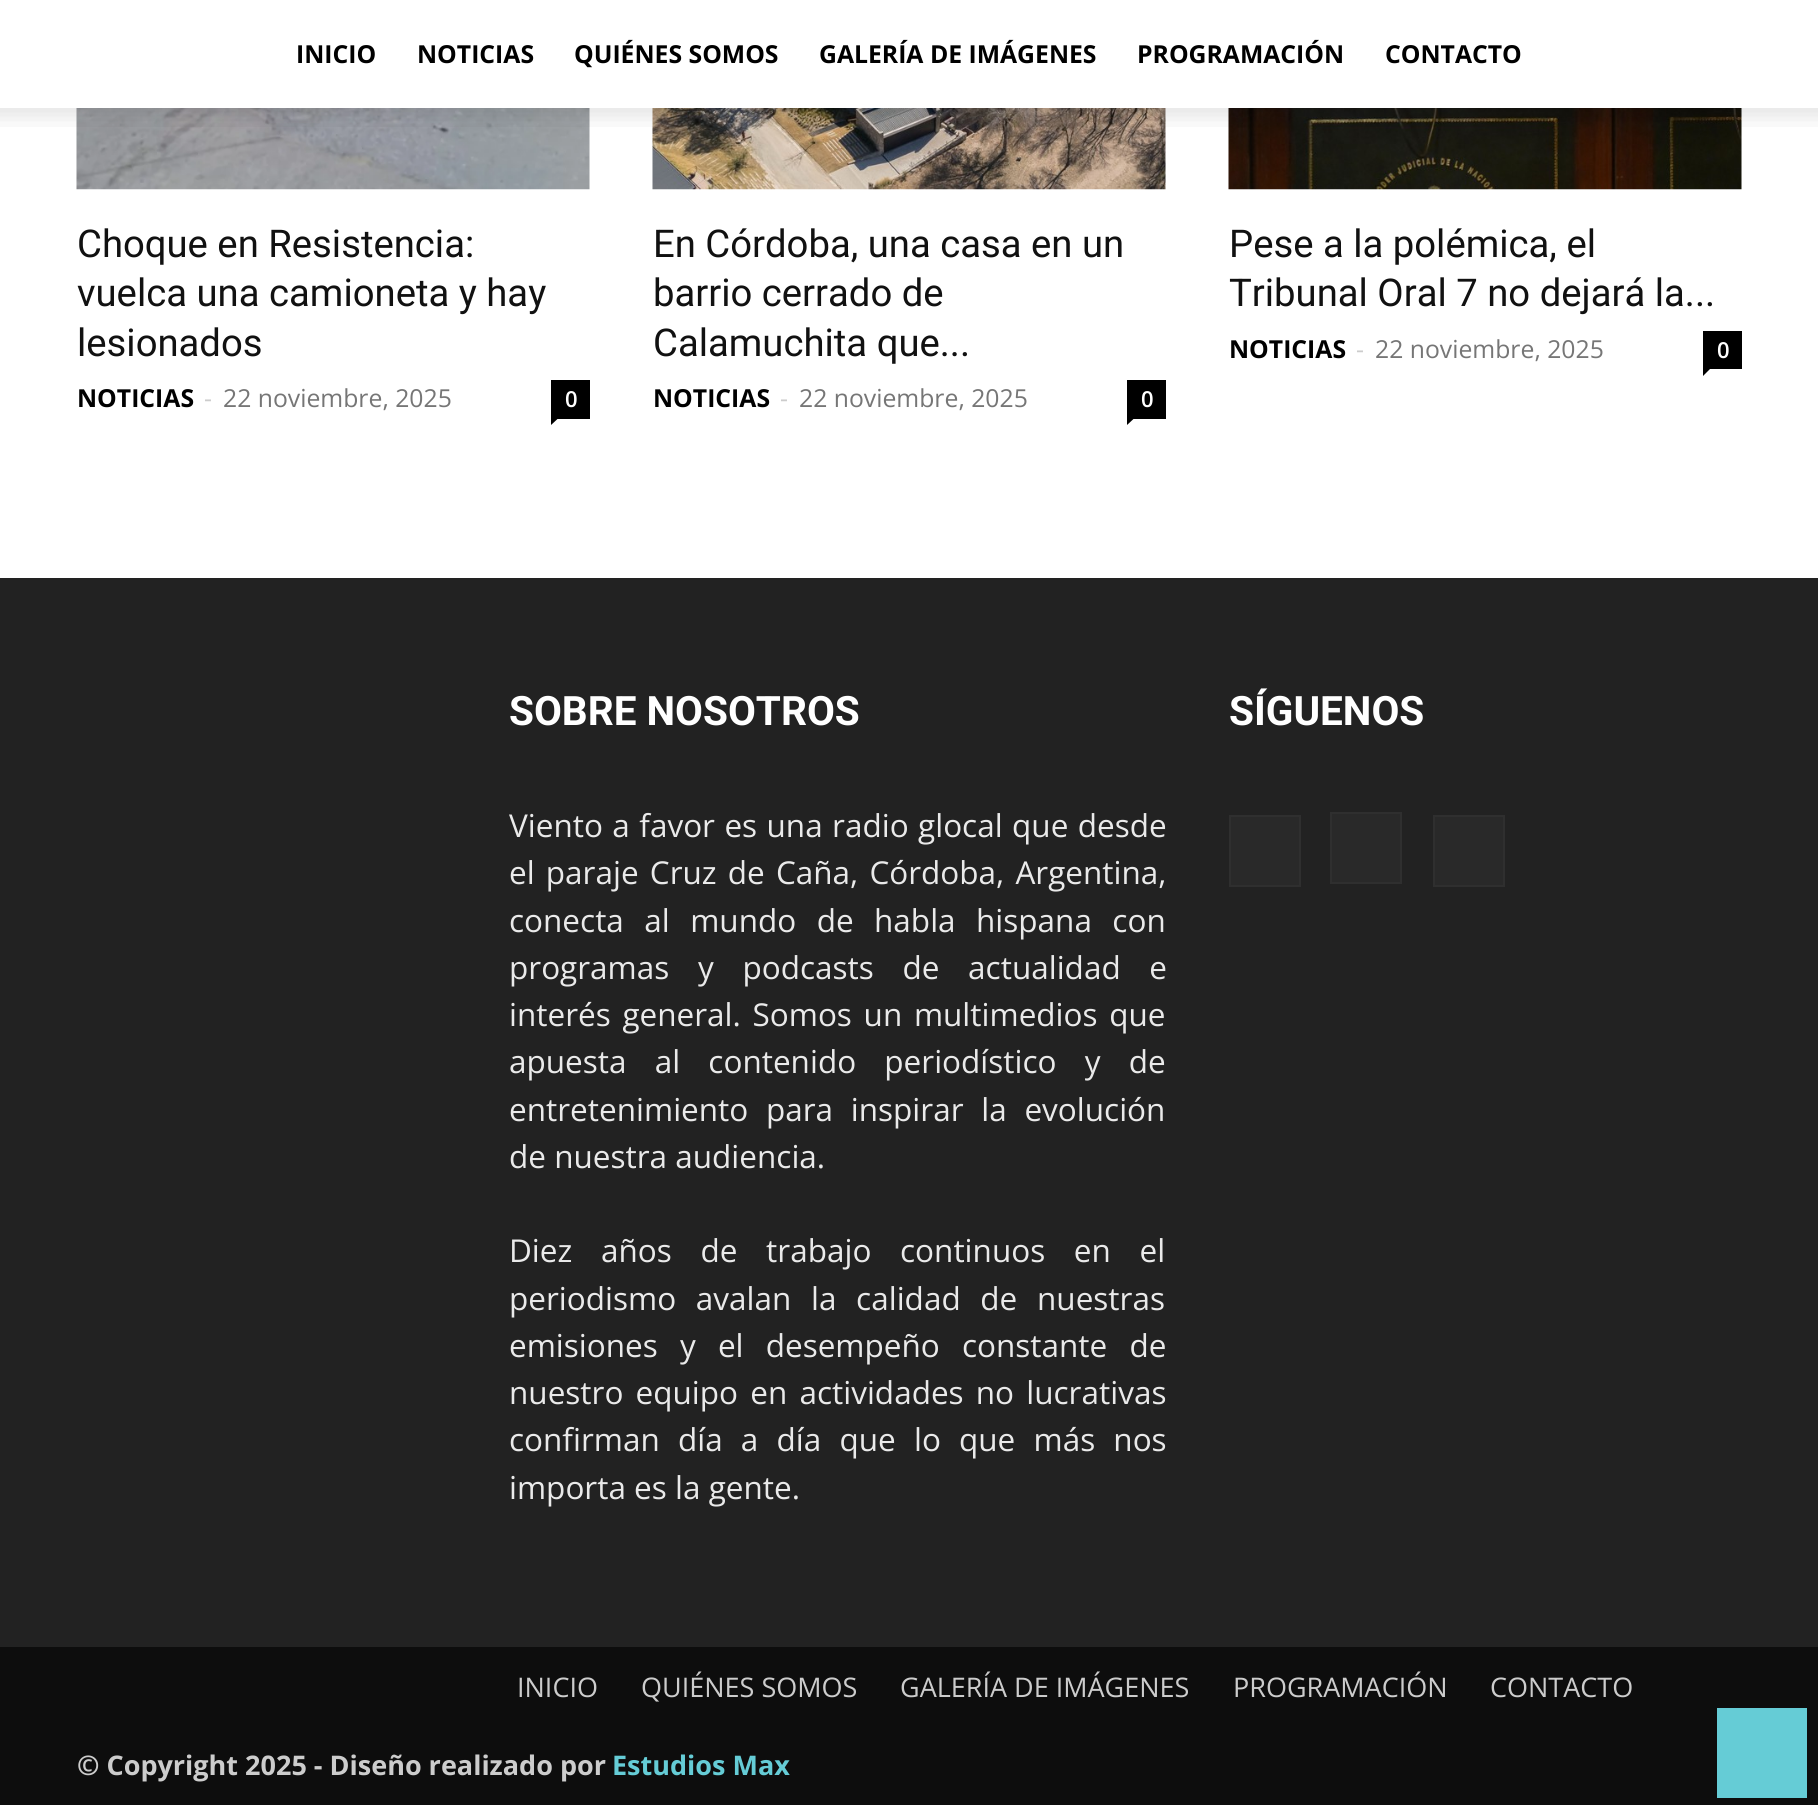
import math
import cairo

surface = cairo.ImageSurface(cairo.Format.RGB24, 1818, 1805)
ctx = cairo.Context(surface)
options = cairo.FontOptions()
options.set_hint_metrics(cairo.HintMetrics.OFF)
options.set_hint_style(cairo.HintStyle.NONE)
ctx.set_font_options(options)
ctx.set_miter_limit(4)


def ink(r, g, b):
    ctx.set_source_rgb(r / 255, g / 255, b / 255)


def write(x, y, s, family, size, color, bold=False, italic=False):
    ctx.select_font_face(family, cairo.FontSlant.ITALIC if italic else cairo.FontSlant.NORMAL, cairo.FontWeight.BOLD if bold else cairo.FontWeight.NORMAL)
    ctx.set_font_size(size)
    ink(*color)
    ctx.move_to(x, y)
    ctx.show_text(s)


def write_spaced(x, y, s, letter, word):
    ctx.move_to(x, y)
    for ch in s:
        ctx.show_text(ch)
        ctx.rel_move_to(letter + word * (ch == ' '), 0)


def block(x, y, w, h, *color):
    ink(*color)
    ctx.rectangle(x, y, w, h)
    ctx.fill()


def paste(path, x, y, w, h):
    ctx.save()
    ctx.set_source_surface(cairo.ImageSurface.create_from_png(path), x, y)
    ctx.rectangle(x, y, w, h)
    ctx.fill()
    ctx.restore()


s1 = dict(family="Open Sans", size=24.75, color=(0, 0, 0), bold=True)
s2 = dict(family="Roboto", size=38.25, color=(17, 17, 17))
s3 = dict(family="Open Sans", size=24.75, color=(204, 204, 204))
s4 = dict(family="Open Sans", size=24.75, color=(118, 118, 118))
s5 = dict(family="Open Sans SemiBold", size=22, color=(255, 255, 255))
s6 = dict(family="Roboto", size=40.5, color=(255, 255, 255), bold=True)
s7 = dict(family="Open Sans", size=31.5, color=(234, 234, 234))
s8 = dict(family="Open Sans", size=27, color=(204, 204, 204))
s9 = dict(family="Open Sans", size=27, color=(204, 204, 204), bold=True)
s10 = dict(family="Open Sans", size=27, color=(101, 204, 214), bold=True)

ink(255, 255, 255)
ctx.paint()
write(296, 63, "INICIO", **s1)
write(417, 63, "NOTICIAS", **s1)
write(574, 63, "QUIÉNES SOMOS", **s1)
write(819, 63, "GALERÍA DE IMÁGENES", **s1)
write(1137, 63, "PROGRAMACIÓN", **s1)
write(1385, 63, "CONTACTO", **s1)
paste("pic2.png", 76, 108, 514, 82)
paste("pic3.png", 652, 108, 514, 82)
paste("pic4.png", 1228, 108, 514, 82)
paste("pic1.png", 0, 108, 1818, 19)
write(77, 257, "Choque en Resistencia:", **s2)
write(77, 306, "vuelca una camioneta y hay", **s2)
write(77, 356, "lesionados", **s2)
write(77, 407, "NOTICIAS", **s1)
write(204, 407, "-", **s3)
write(223, 407, "22 noviembre, 2025", **s4)
block(551, 380, 39, 39, 0, 0, 0)
write(565, 407, "0", **s5)
ink(0, 0, 0)
ctx.new_path()
ctx.move_to(551, 418.5)
ctx.line_to(558, 418.5)
ctx.line_to(551, 425)
ctx.close_path()
ctx.fill()
write(653, 257, "En Córdoba, una casa en un", **s2)
write(653, 306, "barrio cerrado de", **s2)
write(653, 356, "Calamuchita que...", **s2)
write(653, 407, "NOTICIAS", **s1)
write(780, 407, "-", **s3)
write(799, 407, "22 noviembre, 2025", **s4)
block(1127, 380, 39, 39, 0, 0, 0)
write(1141, 407, "0", **s5)
ink(0, 0, 0)
ctx.new_path()
ctx.move_to(1127, 418.5)
ctx.line_to(1134, 418.5)
ctx.line_to(1127, 425)
ctx.close_path()
ctx.fill()
write(1229, 257, "Pese a la polémica, el", **s2)
write(1229, 306, "Tribunal Oral 7 no dejará la...", **s2)
write(1229, 358, "NOTICIAS", **s1)
write(1356, 358, "-", **s3)
write(1375, 358, "22 noviembre, 2025", **s4)
block(1703, 331, 39, 38, 0, 0, 0)
write(1717, 358, "0", **s5)
ink(0, 0, 0)
ctx.new_path()
ctx.move_to(1703, 369)
ctx.line_to(1710, 369)
ctx.line_to(1703, 376)
ctx.close_path()
ctx.fill()
block(0, 578, 1818, 1069, 34, 34, 34)
write(509, 725, "SOBRE NOSOTROS", **s6)
ctx.select_font_face("Open Sans")
ctx.set_font_size(31.5)
ink(234, 234, 234)
write_spaced(509, 837, "Viento a favor es una radio glocal que desde", 0, 1.25)
write_spaced(509, 884, "el paraje Cruz de Caña, Córdoba, Argentina,", 0, 3)
write_spaced(509, 932, "conecta al mundo de habla hispana con", 0, 12.25)
write_spaced(509, 979, "programas y podcasts de actualidad e", 0, 20.5)
write_spaced(509, 1026, "interés general. Somos un multimedios que", 0, 3.5)
write_spaced(509, 1073, "apuesta al contenido periodístico y de", 0, 20)
write_spaced(509, 1121, "entretenimiento para inspirar la evolución", 0, 9.5)
write(509, 1168, "de nuestra audiencia.", **s7)
write_spaced(509, 1262, "Diez años de trabajo continuos en el", 0, 20.5)
write_spaced(509, 1310, "periodismo avalan la calidad de nuestras", 0, 11.5)
write_spaced(509, 1357, "emisiones y el desempeño constante de", 0, 14)
write_spaced(509, 1404, "nuestro equipo en actividades no lucrativas", 0, 4)
write_spaced(509, 1451, "confirman día a día que lo que más nos", 0, 10)
write(509, 1499, "importa es la gente.", **s7)
write(1229, 725, "SÍGUENOS", **s6)
ink(41, 41, 41)
ctx.rectangle(1230, 816, 70, 70)
ctx.fill_preserve()
ink(47, 47, 47)
ctx.stroke()
ink(41, 41, 41)
ctx.rectangle(1331, 813, 70, 70)
ctx.fill_preserve()
ink(47, 47, 47)
ctx.stroke()
ink(41, 41, 41)
ctx.rectangle(1434, 816, 70, 70)
ctx.fill_preserve()
ink(47, 47, 47)
ctx.stroke()
block(0, 1647, 1818, 158, 13, 13, 13)
write(517, 1697, "INICIO", **s8)
write(641, 1697, "QUIÉNES SOMOS", **s8)
write(900, 1697, "GALERÍA DE IMÁGENES", **s8)
write(1233, 1697, "PROGRAMACIÓN", **s8)
write(1490, 1697, "CONTACTO", **s8)
write(77, 1775, "© Copyright 2025 - Diseño realizado por", **s9)
write(612, 1775, "Estudios Max", **s10)
block(1717, 1708, 90, 90, 101, 204, 214)
surface.write_to_png("screenshot.png")
